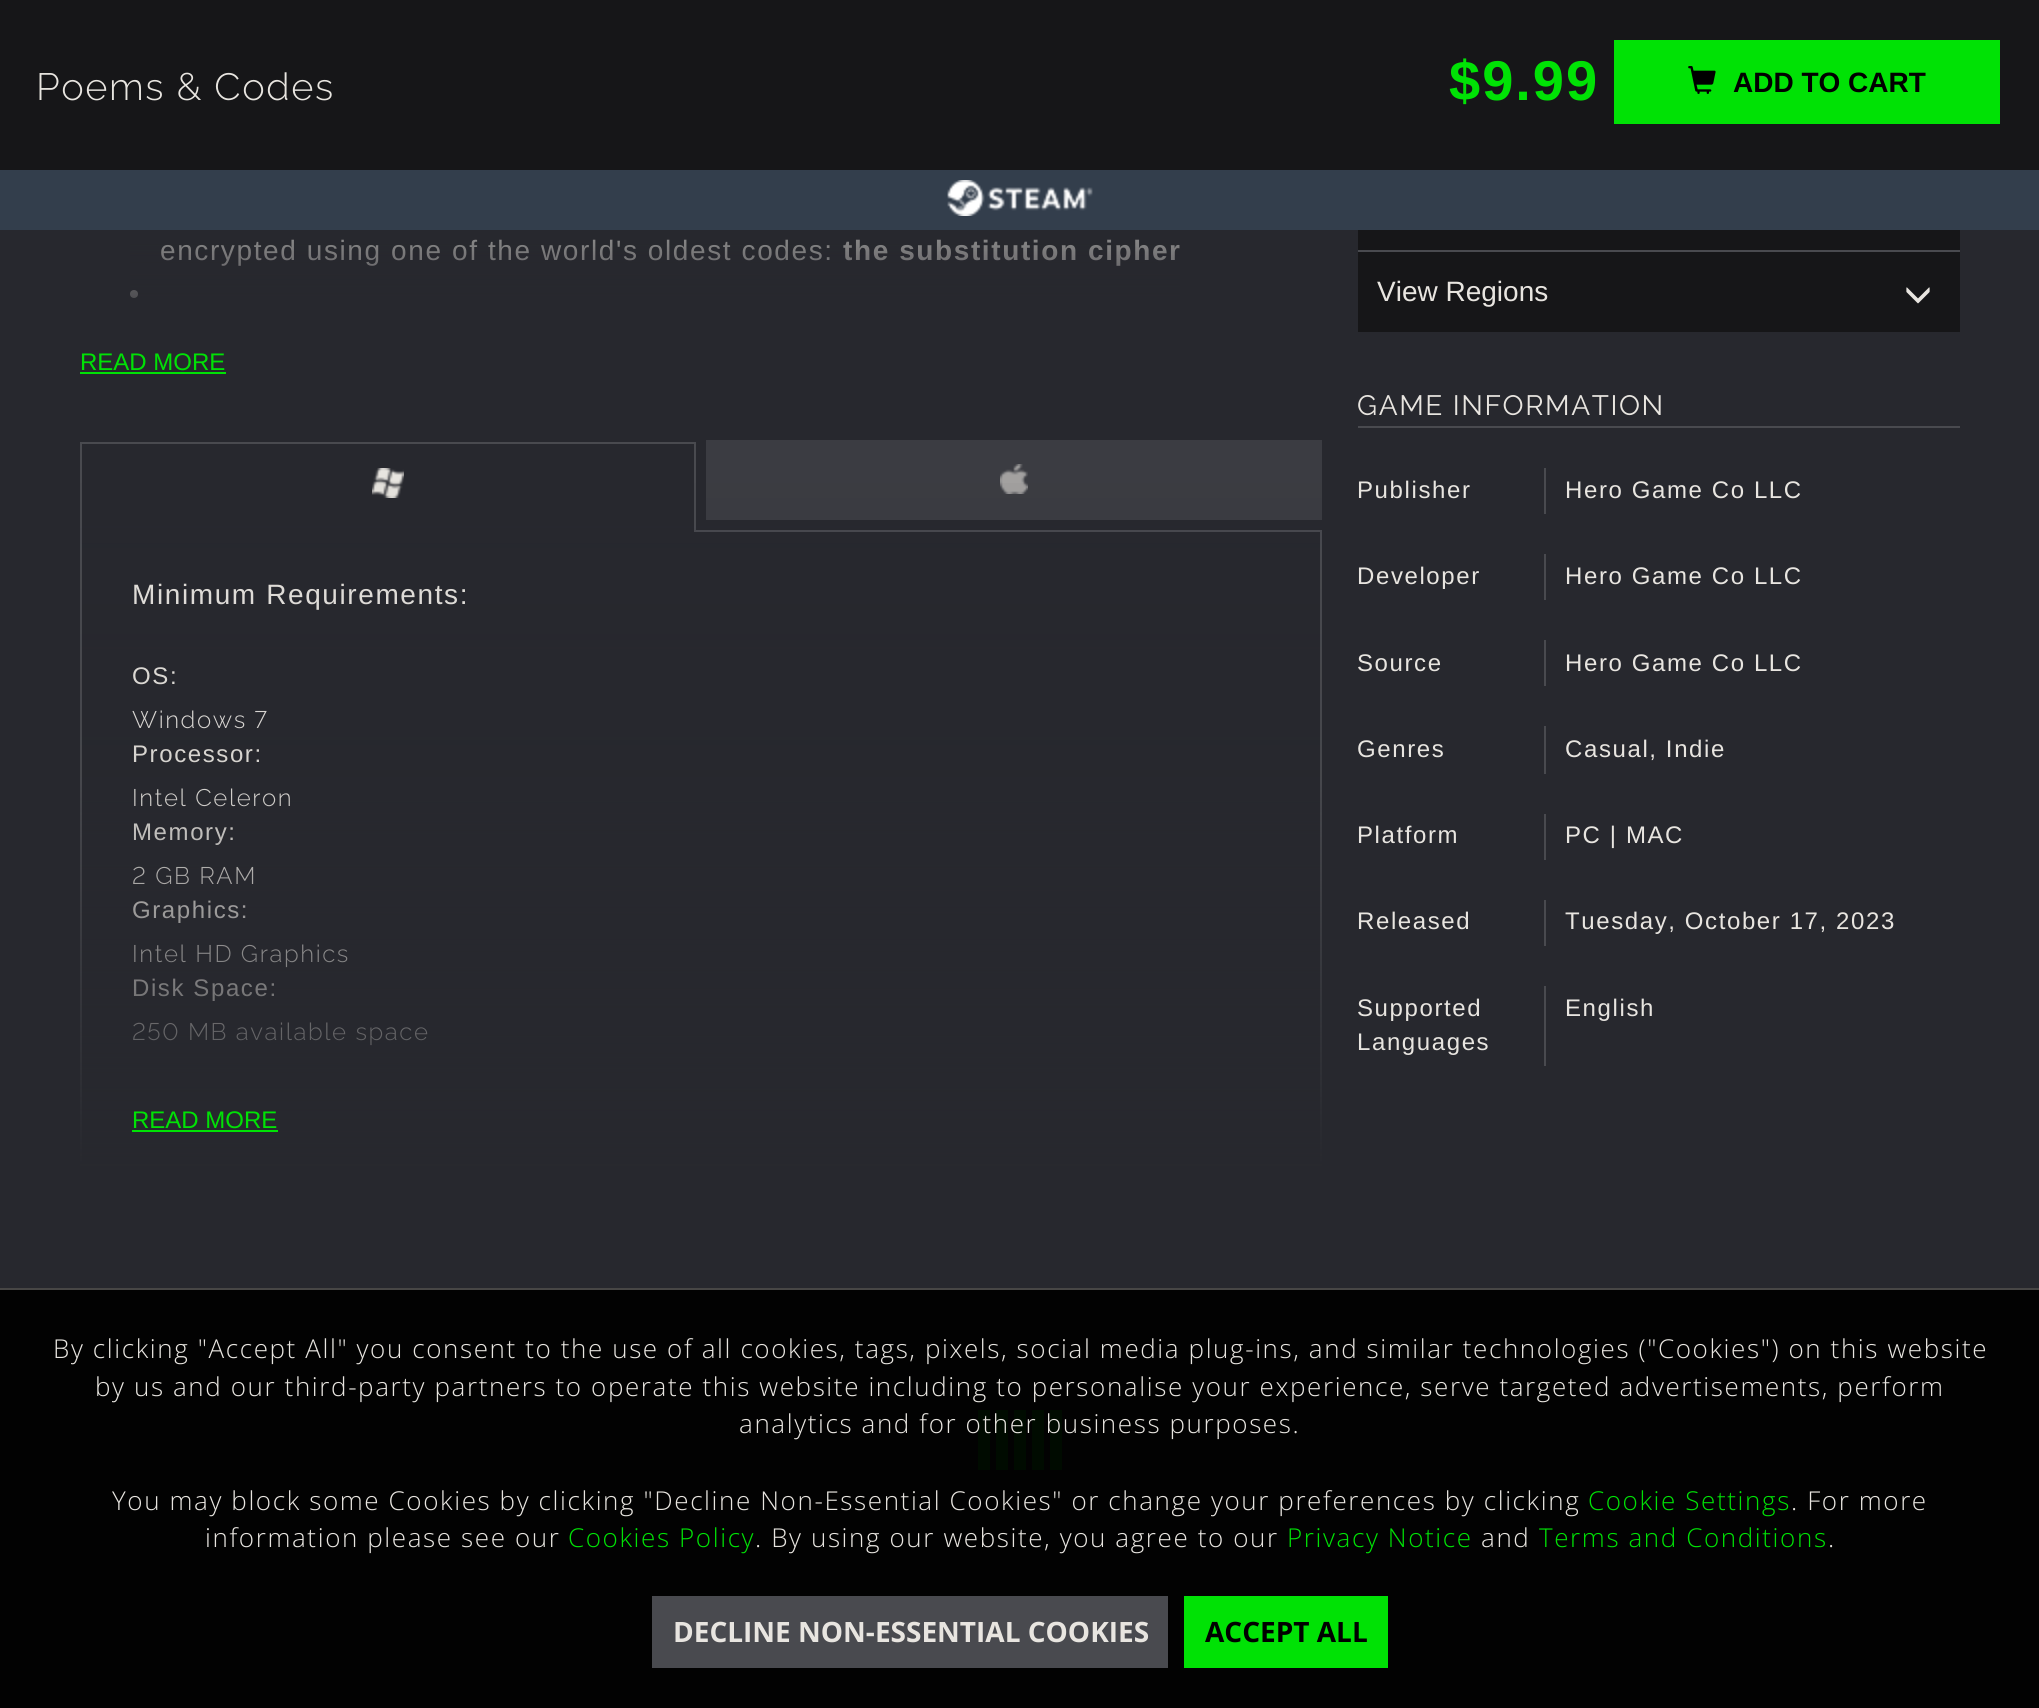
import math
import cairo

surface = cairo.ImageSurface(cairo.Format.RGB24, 2039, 1708)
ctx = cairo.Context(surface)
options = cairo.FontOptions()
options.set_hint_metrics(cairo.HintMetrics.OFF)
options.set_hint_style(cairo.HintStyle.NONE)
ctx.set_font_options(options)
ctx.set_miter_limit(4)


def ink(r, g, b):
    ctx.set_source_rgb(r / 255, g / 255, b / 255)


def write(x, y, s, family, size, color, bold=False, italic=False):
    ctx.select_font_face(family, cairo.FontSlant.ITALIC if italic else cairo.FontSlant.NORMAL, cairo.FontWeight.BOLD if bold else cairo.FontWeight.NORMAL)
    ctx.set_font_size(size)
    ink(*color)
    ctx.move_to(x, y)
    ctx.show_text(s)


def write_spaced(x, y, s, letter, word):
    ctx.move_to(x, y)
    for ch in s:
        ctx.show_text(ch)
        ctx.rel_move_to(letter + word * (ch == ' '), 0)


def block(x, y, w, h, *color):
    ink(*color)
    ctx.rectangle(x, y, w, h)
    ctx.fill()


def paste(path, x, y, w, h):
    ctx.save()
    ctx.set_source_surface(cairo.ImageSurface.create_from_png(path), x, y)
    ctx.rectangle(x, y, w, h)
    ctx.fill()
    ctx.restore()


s1 = dict(family="Liberation Sans", size=28, color=(0, 0, 0), bold=True)
s2 = dict(family="Liberation Sans", size=24, color=(0, 226, 5))
s3 = dict(family="Liberation Sans", size=28, color=(232, 229, 224))
s4 = dict(family="Open Sans", size=28, color=(232, 229, 224), bold=True)
s5 = dict(family="Open Sans", size=28, color=(0, 0, 0), bold=True)

ink(39, 40, 46)
ctx.paint()
block(0, 1290, 2039, 418, 2, 2, 2)
block(0, 0, 2039, 170, 22, 22, 24)
ctx.select_font_face("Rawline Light")
ctx.set_font_size(38)
ink(232, 229, 224)
write_spaced(36, 100, "Poems & Codes", 1.6, 0)
ctx.select_font_face("Liberation Sans", cairo.FontSlant.NORMAL, cairo.FontWeight.BOLD)
ctx.set_font_size(56)
ink(0, 226, 5)
write_spaced(1449, 100, "$9.99", 2, 0)
block(1614, 40, 386, 84, 0, 226, 5)
paste("pic1.png", 1688, 66, 28, 28)
write(1733, 92, "ADD TO CART", **s1)
block(0, 170, 2039, 60, 51, 62, 76)
paste("pic2.png", 947, 180, 146, 36)
ctx.select_font_face("Liberation Sans")
ink(232, 229, 224)
write_spaced(160, 260, "encrypted using one of the world's oldest codes:", 1.6, 0)
ctx.select_font_face("Liberation Sans", cairo.FontSlant.NORMAL, cairo.FontWeight.BOLD)
write_spaced(843, 260, "the substitution cipher", 1.6, 0)
ctx.new_path()
ctx.arc(134, 294, 4, 0, 2 * math.pi)
ctx.fill()
gradient = cairo.LinearGradient(701, -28, 701, 340)
gradient.add_color_stop_rgba(0, 0.153, 0.157, 0.18, 0)
gradient.add_color_stop_rgba(0.5, 0.153, 0.157, 0.18, 0.1)
gradient.add_color_stop_rgba(1, 0.153, 0.157, 0.18, 1)
ctx.set_source(gradient)
ctx.rectangle(130, 239, 1050, 59)
ctx.fill()
write(80, 370, "READ MORE", **s2)
block(80, 372, 146, 2, 0, 226, 5)
block(696, 530, 626, 2, 73, 74, 79)
block(80, 442, 616, 2, 73, 74, 79)
block(694, 442, 2, 90, 73, 74, 79)
block(80, 442, 2, 90, 73, 74, 79)
paste("pic3.png", 372, 468, 32, 30)
block(706, 440, 616, 80, 59, 60, 66)
paste("pic4.png", 1000, 464, 28, 30)
block(1320, 532, 2, 634, 73, 74, 79)
block(80, 1164, 1242, 2, 73, 74, 79)
block(80, 532, 2, 634, 73, 74, 79)
ctx.set_font_size(28)
ink(232, 229, 224)
write_spaced(132, 604, "Minimum Requirements:", 1.6, 0)
ctx.set_font_size(24)
write_spaced(132, 684, "OS:", 1.6, 0)
ctx.select_font_face("Rawline Light")
write_spaced(132, 728, "Windows 7", 1.6, 0)
ctx.select_font_face("Liberation Sans")
write_spaced(132, 762, "Processor:", 1.6, 0)
ctx.select_font_face("Rawline Light")
write_spaced(132, 806, "Intel Celeron", 1.6, 0)
ctx.select_font_face("Liberation Sans")
write_spaced(132, 840, "Memory:", 1.6, 0)
ctx.select_font_face("Rawline Light")
write_spaced(132, 884, "2 GB RAM", 1.6, 0)
ctx.select_font_face("Liberation Sans")
write_spaced(132, 918, "Graphics:", 1.6, 0)
ctx.select_font_face("Rawline Light")
write_spaced(132, 962, "Intel HD Graphics", 1.6, 0)
ctx.select_font_face("Liberation Sans")
write_spaced(132, 996, "Disk Space:", 1.6, 0)
ctx.select_font_face("Rawline Light")
write_spaced(132, 1040, "250 MB available space", 1.6, 0)
gradient = cairo.LinearGradient(701, 400, 701, 1170)
gradient.add_color_stop_rgba(0, 0.153, 0.157, 0.18, 0)
gradient.add_color_stop_rgba(0.5, 0.153, 0.157, 0.18, 0.1)
gradient.add_color_stop_rgba(1, 0.153, 0.157, 0.18, 1)
ctx.set_source(gradient)
ctx.rectangle(80, 483, 1242, 683)
ctx.fill()
write(132, 1128, "READ MORE", **s2)
block(132, 1130, 146, 2, 0, 226, 5)
block(1358, 230, 602, 102, 22, 22, 24)
block(1358, 250, 602, 2, 73, 74, 79)
write(1377, 301, "View Regions", **s3)
paste("pic5.png", 1906, 287, 24, 17)
block(1358, 426, 602, 2, 73, 74, 79)
ctx.select_font_face("Rawline")
ink(232, 229, 224)
write_spaced(1357, 415, "GAME INFORMATION", 1.6, 0)
block(1544, 468, 2, 46, 73, 74, 79)
ctx.select_font_face("Liberation Sans")
ctx.set_font_size(24)
ink(232, 229, 224)
write_spaced(1357, 498, "Publisher", 1.6, 0)
write_spaced(1565, 498, "Hero Game Co LLC", 1.6, 0)
block(1544, 554, 2, 46, 73, 74, 79)
ink(232, 229, 224)
write_spaced(1357, 584, "Developer", 1.6, 0)
write_spaced(1565, 584, "Hero Game Co LLC", 1.6, 0)
block(1544, 640, 2, 46, 73, 74, 79)
ink(232, 229, 224)
write_spaced(1357, 671, "Source", 1.6, 0)
write_spaced(1565, 671, "Hero Game Co LLC", 1.6, 0)
block(1544, 726, 2, 48, 73, 74, 79)
ink(232, 229, 224)
write_spaced(1357, 757, "Genres", 1.6, 0)
write_spaced(1565, 757, "Casual, Indie", 1.6, 0)
block(1544, 814, 2, 46, 73, 74, 79)
ink(232, 229, 224)
write_spaced(1357, 843, "Platform", 1.6, 0)
write_spaced(1565, 843, "PC | MAC", 1.6, 0)
block(1544, 900, 2, 46, 73, 74, 79)
ink(232, 229, 224)
write_spaced(1357, 929, "Released", 1.6, 0)
write_spaced(1565, 929, "Tuesday, October 17, 2023", 1.6, 0)
block(1544, 986, 2, 80, 73, 74, 79)
ink(232, 229, 224)
write_spaced(1357, 1016, "Supported", 1.6, 0)
write_spaced(1357, 1050, "Languages", 1.6, 0)
write_spaced(1565, 1016, "English", 1.6, 0)
block(978, 1410, 12, 60, 0, 11, 0)
block(996, 1410, 12, 60, 0, 11, 0)
block(1014, 1410, 12, 60, 0, 11, 0)
block(1032, 1410, 12, 60, 0, 11, 0)
block(1050, 1410, 12, 60, 0, 11, 0)
block(0, 1288, 2039, 2, 71, 70, 69)
ctx.select_font_face("Open Sans Light")
ctx.set_font_size(26)
ink(232, 229, 224)
write_spaced(53, 1358, "By clicking \"Accept All\" you consent to the use of all cookies, tags, pixels, social media plug-ins, and similar technologies (\"Cookies\") on this website", 1.6, 0)
write_spaced(95, 1396, "by us and our third-party partners to operate this website including to personalise your experience, serve targeted advertisements, perform", 1.6, 0)
write_spaced(739, 1433, "analytics and for other business purposes.", 1.6, 0)
write_spaced(112, 1510, "You may block some Cookies by clicking \"Decline Non-Essential Cookies\" or change your preferences by clicking", 1.6, 0)
ink(0, 226, 5)
write_spaced(1588, 1510, "Cookie Settings", 1.6, 0)
ink(232, 229, 224)
write_spaced(1791, 1510, ". For more", 1.6, 0)
write_spaced(205, 1547, "information please see our", 1.6, 0)
ink(0, 226, 5)
write_spaced(568, 1547, "Cookies Policy", 1.6, 0)
ink(232, 229, 224)
write_spaced(755, 1547, ". By using our website, you agree to our", 1.6, 0)
ink(0, 226, 5)
write_spaced(1287, 1547, "Privacy Notice", 1.6, 0)
ink(232, 229, 224)
write_spaced(1481, 1547, "and", 1.6, 0)
ink(0, 226, 5)
write_spaced(1539, 1547, "Terms and Conditions", 1.6, 0)
ink(232, 229, 224)
write_spaced(1828, 1547, ".", 1.6, 0)
block(652, 1596, 516, 72, 73, 74, 79)
write(673, 1642, "DECLINE NON-ESSENTIAL COOKIES", **s4)
block(1184, 1596, 204, 72, 0, 226, 5)
write(1205, 1642, "ACCEPT ALL", **s5)
surface.write_to_png("screenshot.png")
